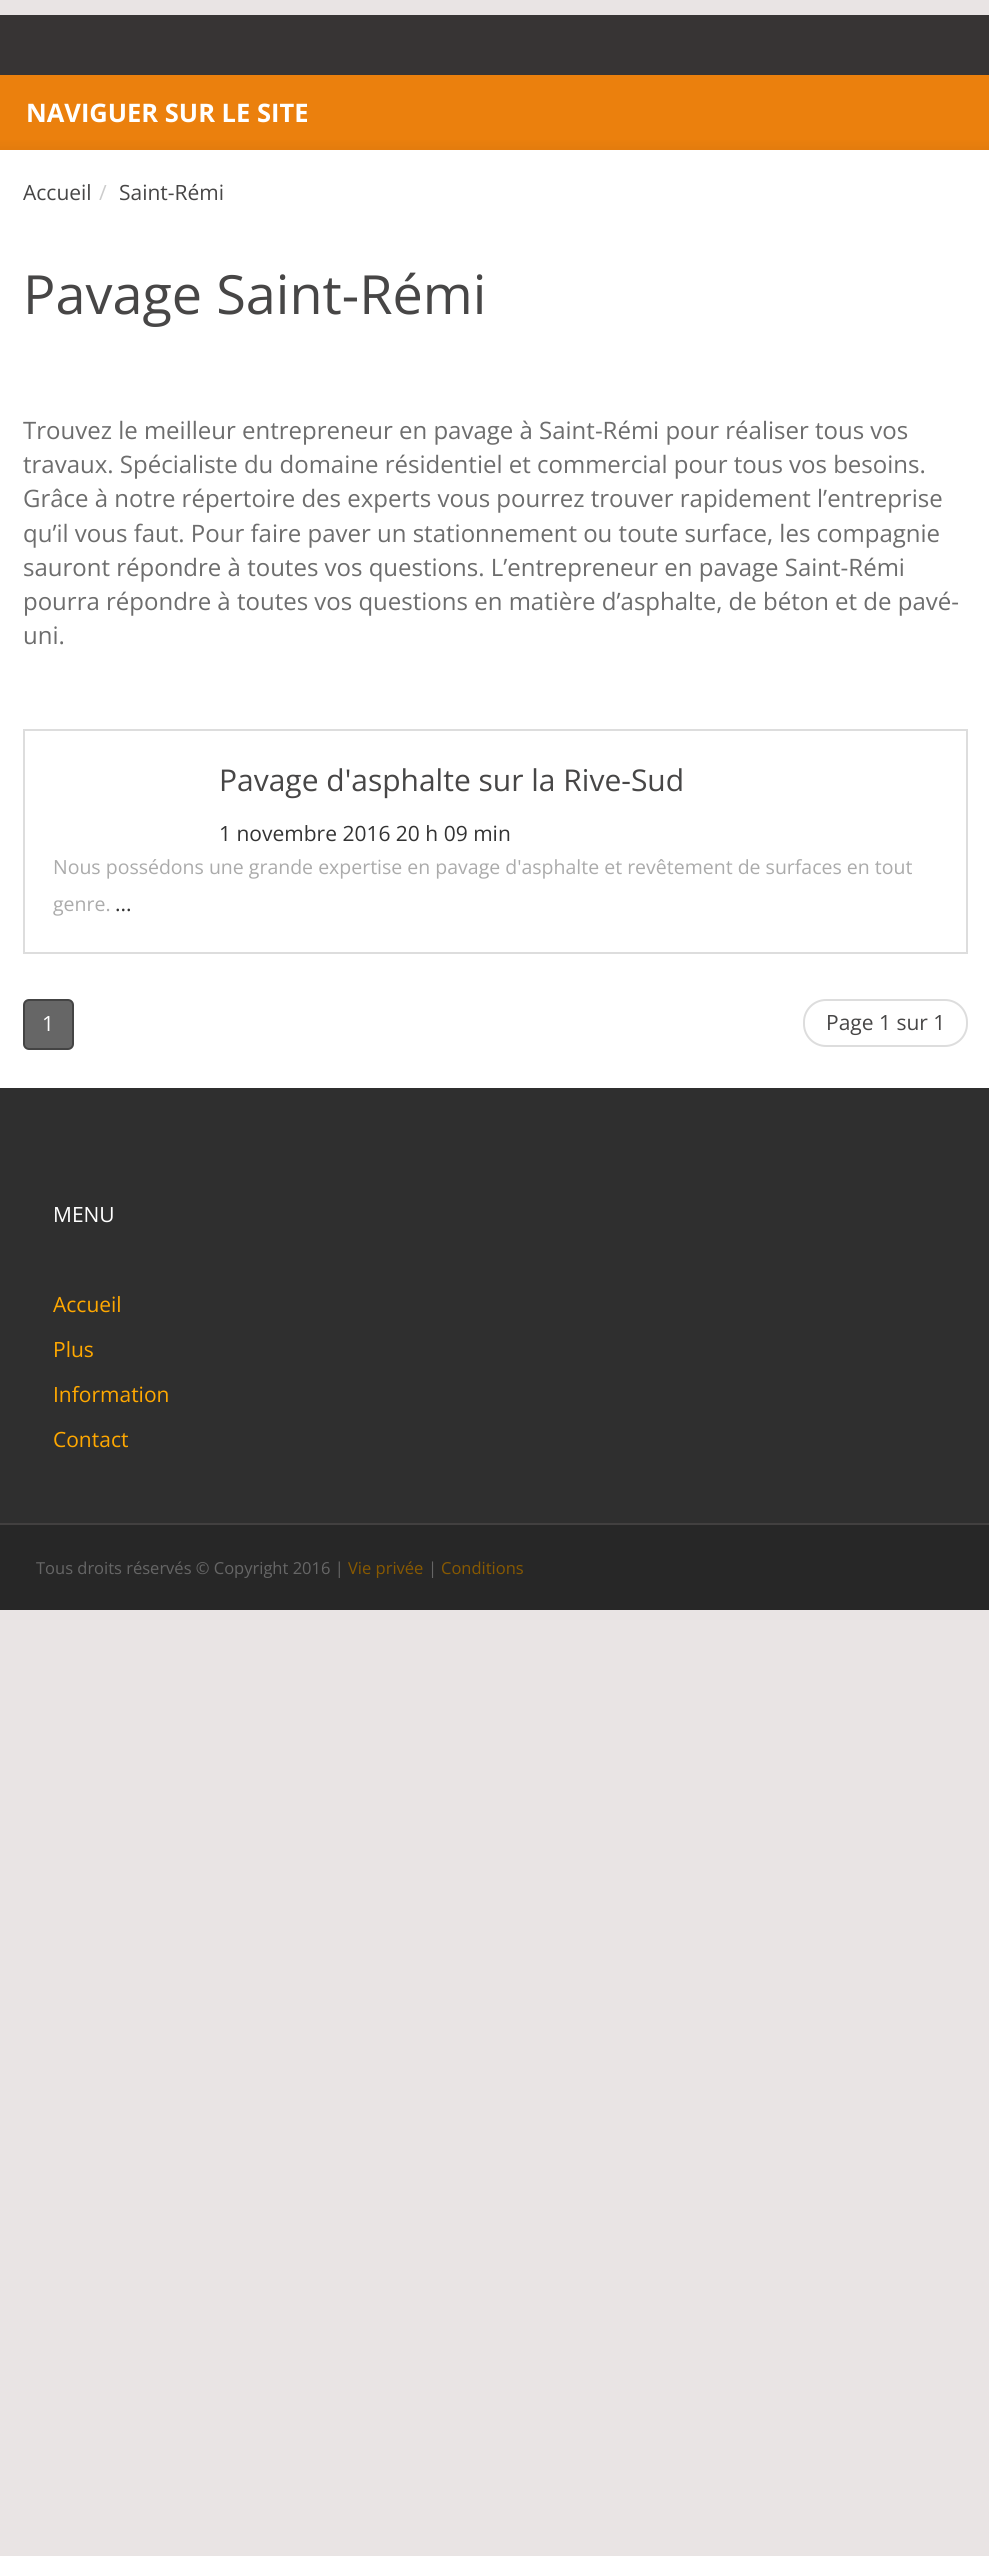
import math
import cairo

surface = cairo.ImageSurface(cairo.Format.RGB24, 989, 2556)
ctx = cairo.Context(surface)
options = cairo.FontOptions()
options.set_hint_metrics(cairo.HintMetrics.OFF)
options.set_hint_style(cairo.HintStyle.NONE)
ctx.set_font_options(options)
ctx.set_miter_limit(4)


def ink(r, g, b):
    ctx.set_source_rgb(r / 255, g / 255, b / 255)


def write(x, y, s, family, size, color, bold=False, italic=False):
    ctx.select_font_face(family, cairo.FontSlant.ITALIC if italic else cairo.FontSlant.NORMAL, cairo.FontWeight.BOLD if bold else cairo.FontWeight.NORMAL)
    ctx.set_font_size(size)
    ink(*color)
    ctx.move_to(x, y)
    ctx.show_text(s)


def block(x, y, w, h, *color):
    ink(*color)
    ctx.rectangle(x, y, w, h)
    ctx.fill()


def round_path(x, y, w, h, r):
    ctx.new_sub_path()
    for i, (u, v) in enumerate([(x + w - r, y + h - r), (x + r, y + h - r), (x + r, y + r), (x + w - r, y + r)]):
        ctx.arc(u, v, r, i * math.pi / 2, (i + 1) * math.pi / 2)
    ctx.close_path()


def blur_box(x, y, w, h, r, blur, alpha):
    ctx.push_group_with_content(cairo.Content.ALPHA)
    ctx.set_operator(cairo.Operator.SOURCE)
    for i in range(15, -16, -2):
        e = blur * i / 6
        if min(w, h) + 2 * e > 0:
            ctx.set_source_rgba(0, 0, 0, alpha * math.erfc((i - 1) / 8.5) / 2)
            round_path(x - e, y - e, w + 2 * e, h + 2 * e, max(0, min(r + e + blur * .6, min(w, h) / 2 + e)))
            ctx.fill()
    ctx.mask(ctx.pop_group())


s1 = dict(family="Open Sans", size=25.5, color=(255, 255, 255), bold=True)
s2 = dict(family="Open Sans", size=21, color=(71, 70, 70))
s3 = dict(family="Open Sans", size=21, color=(204, 204, 204))
s4 = dict(family="Open Sans", size=54, color=(71, 70, 70))
s5 = dict(family="Open Sans", size=24, color=(109, 109, 109))
s6 = dict(family="Open Sans", size=30, color=(71, 70, 70))
s7 = dict(family="Open Sans", size=21, color=(51, 51, 51))
s8 = dict(family="Open Sans", size=19.5, color=(171, 171, 171))
s9 = dict(family="Open Sans", size=21, color=(255, 255, 255))
s10 = dict(family="Open Sans", size=21, color=(255, 168, 0))
s11 = dict(family="Open Sans", size=16.5, color=(102, 102, 102))
s12 = dict(family="Open Sans", size=16.5, color=(136, 89, 0))

ink(233, 228, 228)
ctx.paint()
block(0, 15, 989, 60, 55, 52, 52)
block(0, 75, 989, 75, 235, 128, 13)
write(26, 122, "NAVIGUER SUR LE SITE", **s1)
ink(0, 0, 0)
blur_box(-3, 147, 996, 944, 0, 5, 0.05)
block(0, 150, 989, 938, 255, 255, 255)
write(23, 200, "Accueil", **s2)
write(99, 200, "/", **s3)
write(119, 200, "Saint-Rémi", **s2)
write(23, 314, "Pavage Saint-Rémi", **s4)
write(23, 439, "Trouvez le meilleur entrepreneur en pavage à Saint-Rémi pour réaliser tous vos", **s5)
write(23, 473, "travaux. Spécialiste du domaine résidentiel et commercial pour tous vos besoins.", **s5)
write(23, 507, "Grâce à notre répertoire des experts vous pourrez trouver rapidement l’entreprise", **s5)
write(23, 542, "qu’il vous faut. Pour faire paver un stationnement ou toute surface, les compagnie", **s5)
write(23, 576, "sauront répondre à toutes vos questions. L’entrepreneur en pavage Saint-Rémi", **s5)
write(23, 610, "pourra répondre à toutes vos questions en matière d’asphalte, de béton et de pavé-", **s5)
write(23, 644, "uni.", **s5)
ctx.rectangle(24, 730, 943, 223)
ink(221, 221, 221)
ctx.stroke()
write(219, 791, "Pavage d'asphalte sur la Rive-Sud", **s6)
write(219, 841, "1 novembre 2016 20 h 09 min", **s7)
write(53, 874, "Nous possédons une grande expertise en pavage d'asphalte et revêtement de surfaces en tout", **s8)
write(53, 911, "genre.", **s8)
write(115, 911, "...", **s7)
ink(102, 102, 102)
round_path(24, 1000, 49, 49, 5)
ctx.fill_preserve()
ink(68, 68, 68)
ctx.stroke()
write(42, 1031, "1", **s9)
round_path(804, 1000, 163, 46, 22)
ink(221, 221, 221)
ctx.stroke()
write(826, 1030, "Page 1 sur 1", **s2)
block(0, 1088, 989, 435, 47, 47, 47)
write(53, 1222, "MENU", **s9)
write(53, 1312, "Accueil", **s10)
write(53, 1357, "Plus", **s10)
write(53, 1402, "Information", **s10)
write(53, 1447, "Contact", **s10)
block(0, 1525, 989, 85, 39, 39, 39)
block(0, 1523, 989, 2, 66, 64, 64)
write(36, 1574, "Tous droits réservés © Copyright 2016 |", **s11)
write(348, 1574, "Vie privée", **s12)
write(428, 1574, "|", **s11)
write(441, 1574, "Conditions", **s12)
surface.write_to_png("screenshot.png")
